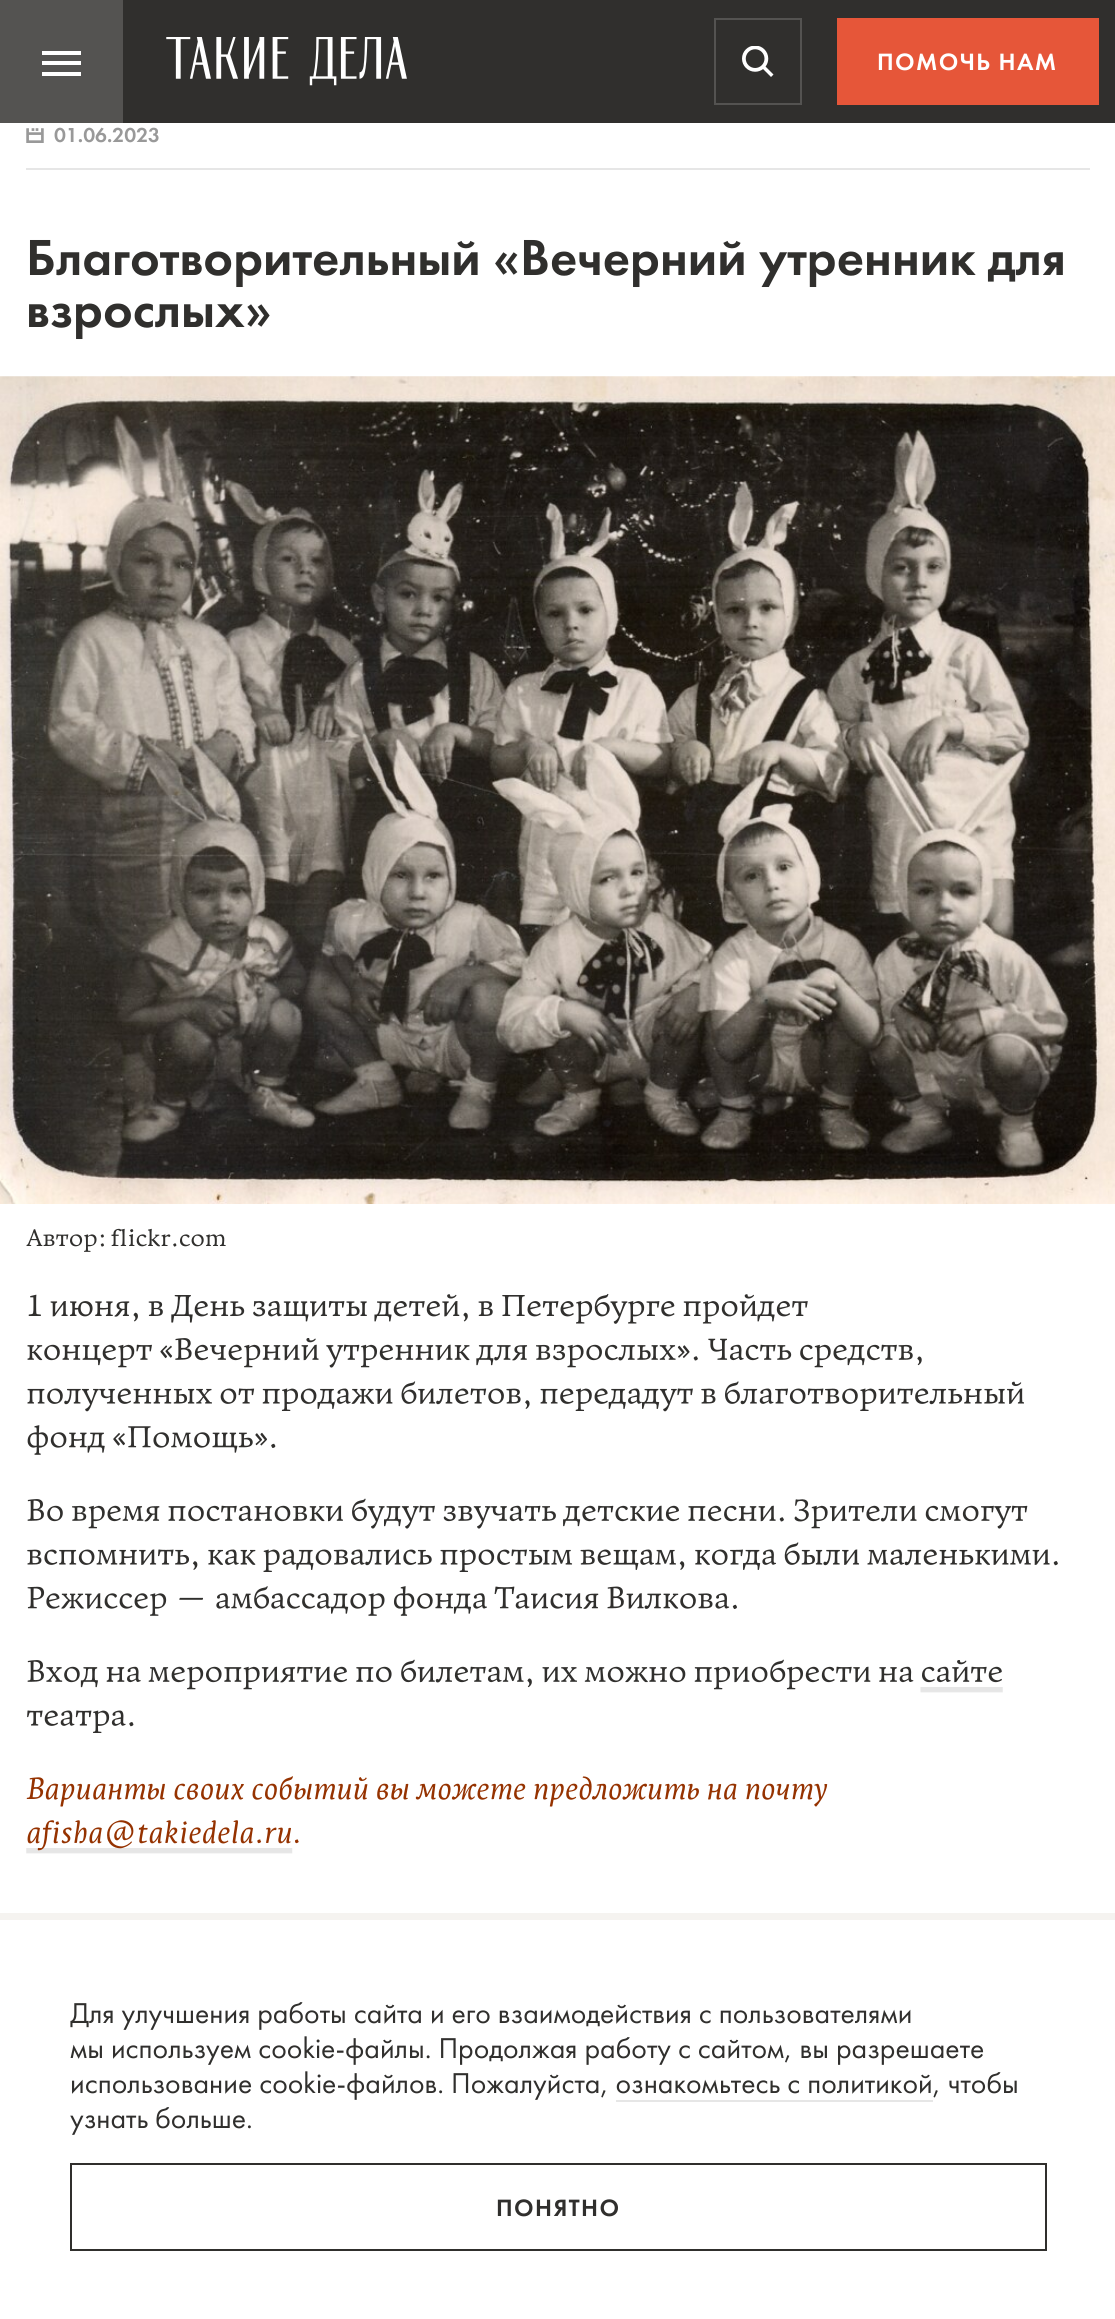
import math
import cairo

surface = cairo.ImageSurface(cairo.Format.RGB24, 1115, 2319)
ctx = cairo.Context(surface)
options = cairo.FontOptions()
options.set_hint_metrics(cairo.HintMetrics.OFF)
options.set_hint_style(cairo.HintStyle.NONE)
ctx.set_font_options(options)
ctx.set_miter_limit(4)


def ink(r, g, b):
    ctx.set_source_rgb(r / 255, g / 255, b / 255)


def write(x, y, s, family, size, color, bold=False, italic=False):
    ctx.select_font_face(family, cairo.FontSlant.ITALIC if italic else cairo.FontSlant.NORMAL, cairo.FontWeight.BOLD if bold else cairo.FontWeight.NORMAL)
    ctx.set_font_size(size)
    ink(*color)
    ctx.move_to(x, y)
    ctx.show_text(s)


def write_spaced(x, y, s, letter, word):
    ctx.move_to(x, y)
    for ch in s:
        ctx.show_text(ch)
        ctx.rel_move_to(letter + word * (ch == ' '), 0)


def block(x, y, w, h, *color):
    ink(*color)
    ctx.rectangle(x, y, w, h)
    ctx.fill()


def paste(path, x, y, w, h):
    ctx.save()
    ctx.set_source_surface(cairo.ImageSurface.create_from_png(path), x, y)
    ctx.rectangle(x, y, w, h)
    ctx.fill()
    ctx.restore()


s1 = dict(family="Futura PT Medium", size=21, color=(153, 153, 153))
s2 = dict(family="Futura PT Medium", size=52.5, color=(48, 47, 45))
s3 = dict(family="Futura PT", size=29.75, color=(48, 47, 45))

ink(245, 243, 240)
ctx.paint()
block(123, 0, 992, 123, 48, 47, 45)
block(0, 0, 123, 123, 84, 83, 81)
block(42, 51, 39, 4, 255, 255, 255)
block(42, 61, 39, 4, 255, 255, 255)
block(42, 72, 39, 4, 255, 255, 255)
paste("pic1.png", 166, 37, 241, 49)
paste("pic2.png", 742, 46, 32, 31)
ctx.rectangle(715, 19, 86, 85)
ink(84, 83, 81)
ctx.stroke()
block(837, 18, 262, 87, 230, 86, 57)
ctx.select_font_face("Futura PT Medium")
ctx.set_font_size(24.5)
ink(255, 255, 255)
write_spaced(877, 70, "ПОМОЧЬ НАМ", 1.4, 0)
block(0, 123, 1115, 1790, 255, 255, 255)
block(26, 168, 1064, 2, 230, 230, 230)
paste("pic3.png", 26, 128, 18, 15)
write(54, 142, "01.06.2023", **s1)
write(26, 275, "Благотворительный «Вечерний утренник для", **s2)
write(26, 327, "взрослых»", **s2)
paste("pic4.png", 0, 376, 1115, 828)
paste("pic5.png", 26, 1228, 200, 24)
paste("pic6.png", 28, 1293, 780, 31)
paste("pic7.png", 27, 1338, 895, 30)
paste("pic8.png", 27, 1381, 997, 31)
paste("pic9.png", 27, 1425, 249, 30)
paste("pic10.png", 27, 1498, 1001, 31)
paste("pic11.png", 27, 1542, 1031, 30)
paste("pic12.png", 27, 1586, 710, 30)
paste("pic13.png", 27, 1659, 887, 31)
paste("pic14.png", 922, 1660, 80, 23)
paste("pic15.png", 920, 1687, 83, 6)
paste("pic16.png", 27, 1710, 107, 23)
paste("pic17.png", 26, 1776, 802, 31)
paste("pic20.png", 26, 1848, 267, 6)
paste("pic18.png", 27, 1820, 264, 31)
paste("pic19.png", 295, 1839, 4, 5)
block(0, 1920, 1115, 399, 255, 255, 255)
write(70, 2023, "Для улучшения работы сайта и его взаимодействия с пользователями", **s3)
write(70, 2058, "мы используем cookie-файлы. Продолжая работу с сайтом, вы разрешаете", **s3)
write(70, 2093, "использование cookie-файлов. Пожалуйста, ознакомьтесь с политикой, чтобы", **s3)
block(616, 2100, 317, 2, 230, 230, 230)
write(70, 2128, "узнать больше.", **s3)
ctx.rectangle(71, 2164, 975, 86)
ctx.stroke()
ctx.select_font_face("Futura PT Medium")
ctx.set_font_size(24.5)
write_spaced(496, 2216, "ПОНЯТНО", 1.4, 0)
surface.write_to_png("screenshot.png")
